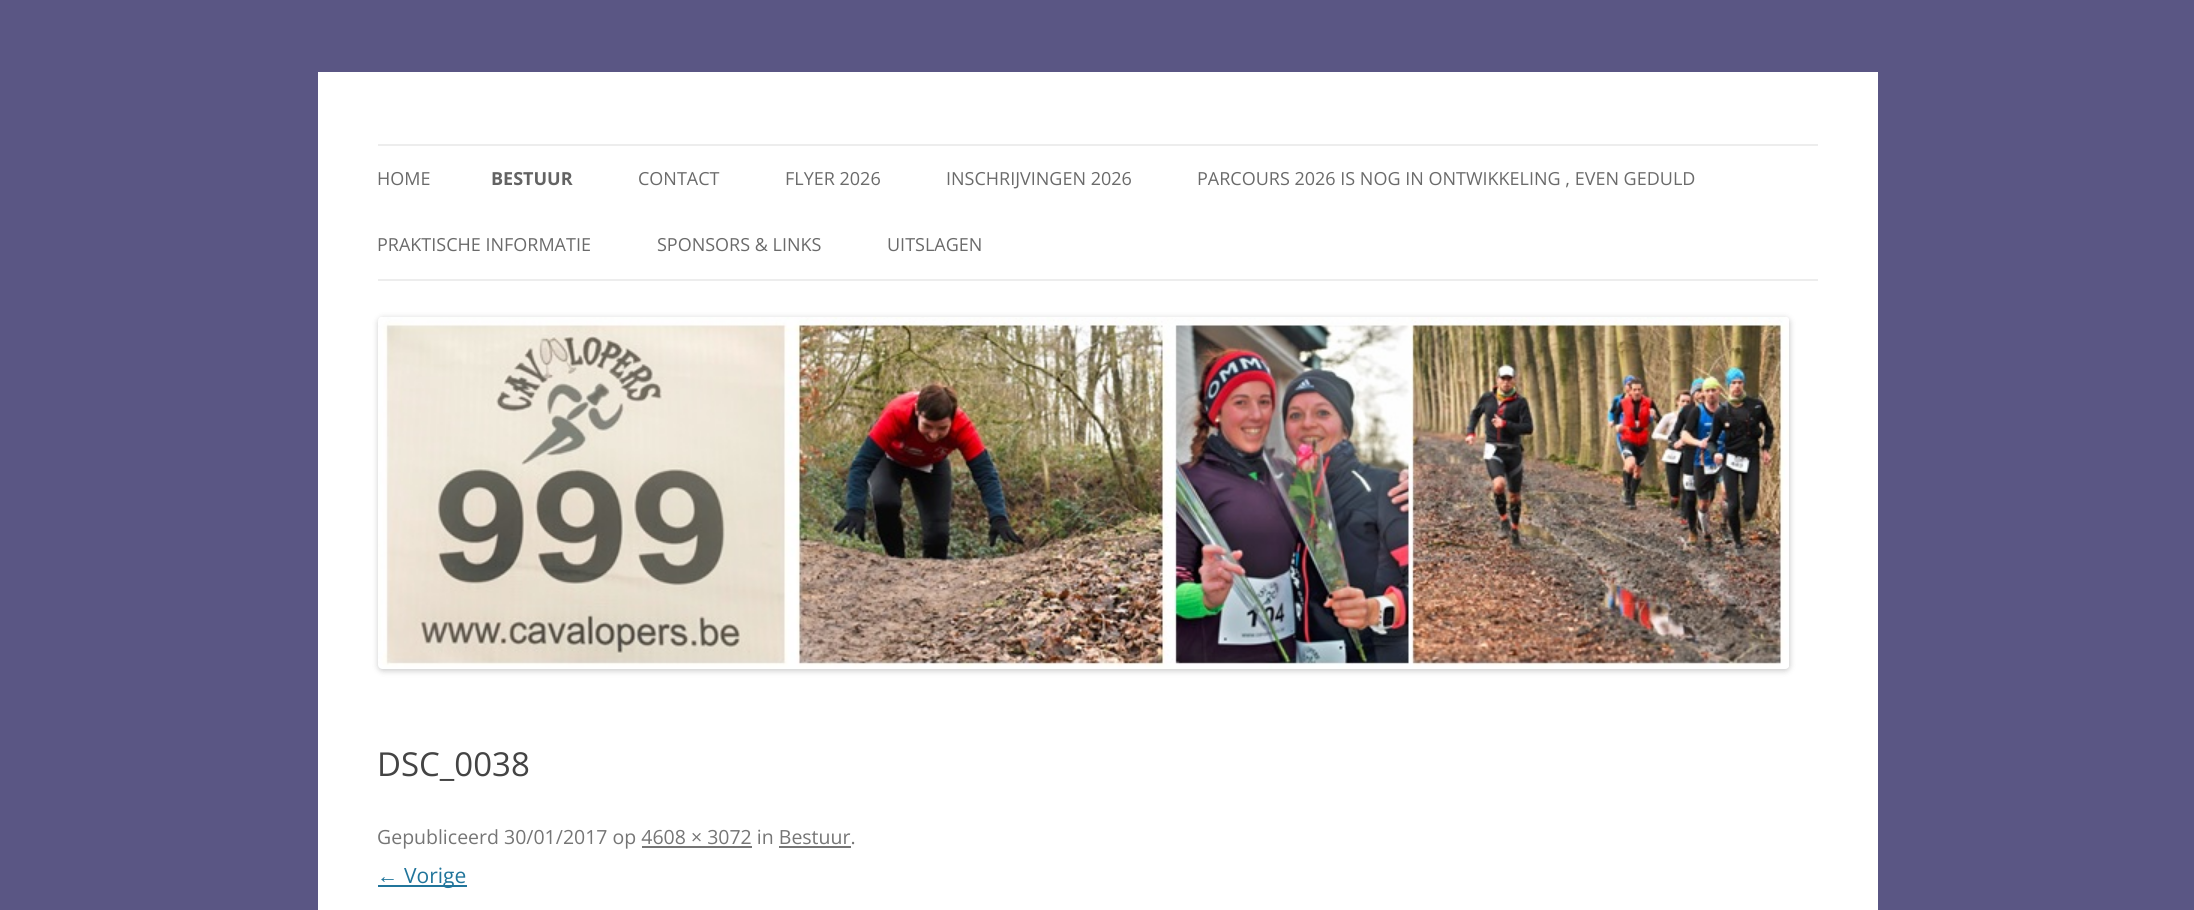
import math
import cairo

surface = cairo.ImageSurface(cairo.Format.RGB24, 2194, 910)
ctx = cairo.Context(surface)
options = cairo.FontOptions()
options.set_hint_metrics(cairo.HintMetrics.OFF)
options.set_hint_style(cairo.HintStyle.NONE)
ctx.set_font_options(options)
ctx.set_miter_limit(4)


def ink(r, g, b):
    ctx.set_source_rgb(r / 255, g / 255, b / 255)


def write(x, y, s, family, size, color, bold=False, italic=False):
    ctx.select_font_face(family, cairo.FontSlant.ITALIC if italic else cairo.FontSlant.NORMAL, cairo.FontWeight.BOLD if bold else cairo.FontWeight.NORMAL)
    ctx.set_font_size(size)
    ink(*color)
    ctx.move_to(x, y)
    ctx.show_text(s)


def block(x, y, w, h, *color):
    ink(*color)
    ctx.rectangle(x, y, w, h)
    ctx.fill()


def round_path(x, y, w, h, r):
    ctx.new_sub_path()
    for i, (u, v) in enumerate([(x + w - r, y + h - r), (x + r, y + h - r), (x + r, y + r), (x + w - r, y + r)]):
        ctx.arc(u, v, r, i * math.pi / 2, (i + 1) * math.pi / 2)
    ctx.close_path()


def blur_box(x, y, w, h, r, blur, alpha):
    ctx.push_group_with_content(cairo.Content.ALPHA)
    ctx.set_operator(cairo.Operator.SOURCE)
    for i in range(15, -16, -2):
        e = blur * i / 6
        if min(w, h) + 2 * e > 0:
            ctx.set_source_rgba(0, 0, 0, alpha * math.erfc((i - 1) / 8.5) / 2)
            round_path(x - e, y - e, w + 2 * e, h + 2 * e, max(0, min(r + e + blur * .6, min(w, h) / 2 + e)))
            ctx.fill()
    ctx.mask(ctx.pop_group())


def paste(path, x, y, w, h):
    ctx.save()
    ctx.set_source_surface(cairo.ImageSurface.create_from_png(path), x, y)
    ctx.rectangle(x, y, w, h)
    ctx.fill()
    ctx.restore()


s1 = dict(family="Open Sans", size=18, color=(106, 106, 106))
s2 = dict(family="Open Sans", size=18, color=(99, 99, 99), bold=True)
s3 = dict(family="Open Sans", size=33, color=(68, 68, 68))
s4 = dict(family="Open Sans", size=19.5, color=(117, 117, 117))
s5 = dict(family="Liberation Sans", size=21, color=(33, 117, 155))
s6 = dict(family="Open Sans", size=21, color=(33, 117, 155))

ink(90, 86, 132)
ctx.paint()
block(318, 72, 1560, 838, 255, 255, 255)
block(378, 144, 1440, 2, 237, 237, 237)
block(378, 279, 1440, 2, 237, 237, 237)
write(377, 185, "HOME", **s1)
write(491, 185, "BESTUUR", **s2)
write(638, 185, "CONTACT", **s1)
write(785, 185, "FLYER 2026", **s1)
write(946, 185, "INSCHRIJVINGEN 2026", **s1)
write(1197, 185, "PARCOURS 2026 IS NOG IN ONTWIKKELING , EVEN GEDULD", **s1)
write(377, 251, "PRAKTISCHE INFORMATIE", **s1)
write(657, 251, "SPONSORS & LINKS", **s1)
write(887, 251, "UITSLAGEN", **s1)
ink(0, 0, 0)
blur_box(378, 318, 1412, 353, 5, 3, 0.2)
paste("pic1.png", 378, 317, 1411, 352)
write(377, 776, "DSC_0038", **s3)
write(377, 844, "Gepubliceerd 30/01/2017 op 4608 × 3072 in Bestuur.", **s4)
block(642, 846, 110, 2, 117, 117, 117)
block(779, 846, 72, 2, 117, 117, 117)
write(377, 883, "←", **s5)
block(378, 885, 89, 2, 33, 117, 155)
write(404, 883, "Vorige", **s6)
surface.write_to_png("screenshot.png")
